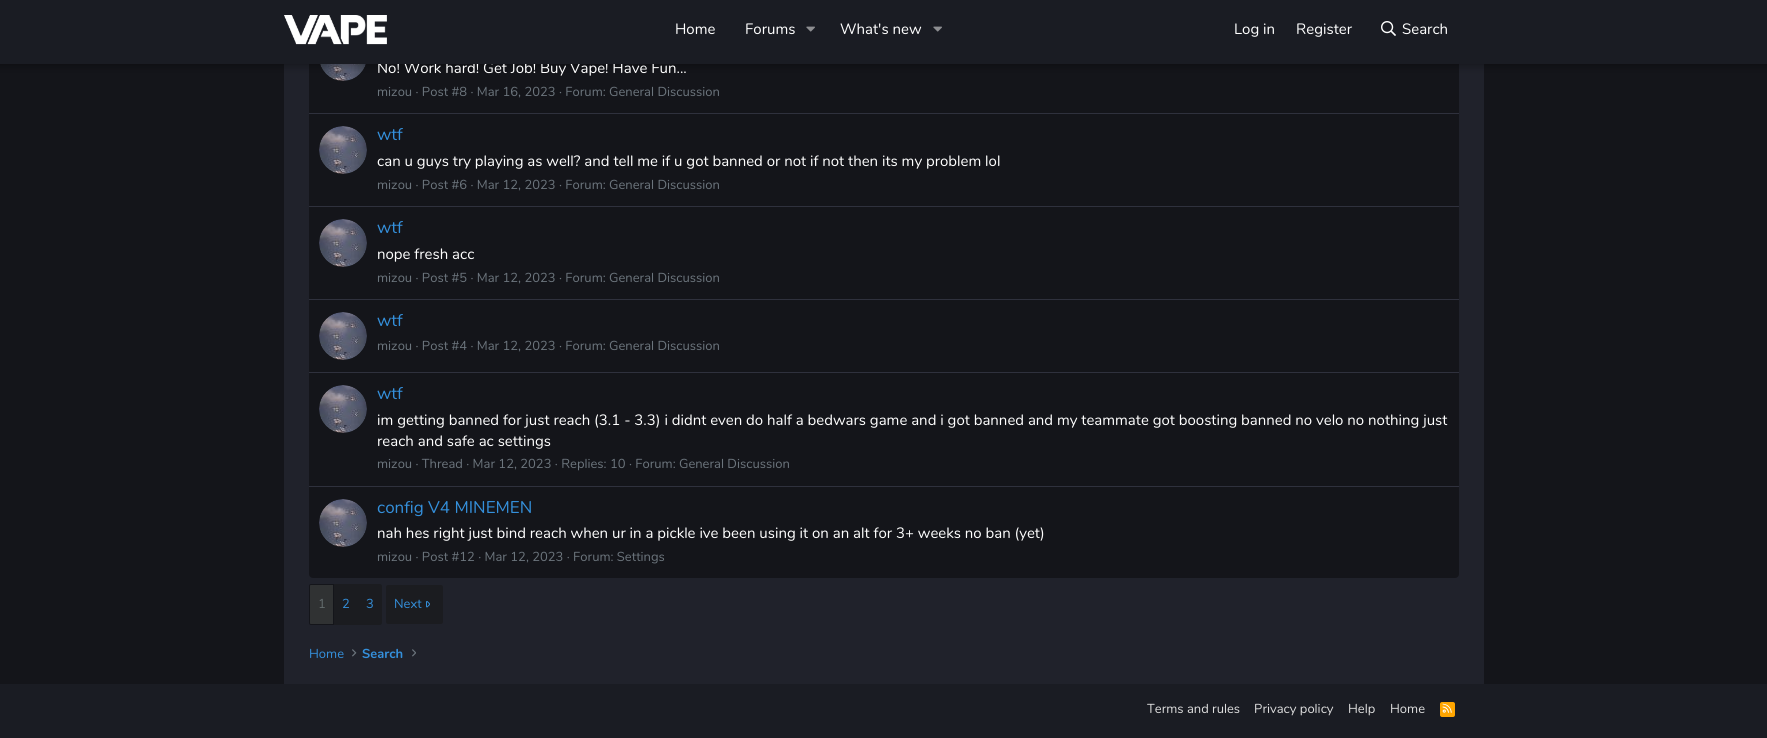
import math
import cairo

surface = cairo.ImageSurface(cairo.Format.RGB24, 1767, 738)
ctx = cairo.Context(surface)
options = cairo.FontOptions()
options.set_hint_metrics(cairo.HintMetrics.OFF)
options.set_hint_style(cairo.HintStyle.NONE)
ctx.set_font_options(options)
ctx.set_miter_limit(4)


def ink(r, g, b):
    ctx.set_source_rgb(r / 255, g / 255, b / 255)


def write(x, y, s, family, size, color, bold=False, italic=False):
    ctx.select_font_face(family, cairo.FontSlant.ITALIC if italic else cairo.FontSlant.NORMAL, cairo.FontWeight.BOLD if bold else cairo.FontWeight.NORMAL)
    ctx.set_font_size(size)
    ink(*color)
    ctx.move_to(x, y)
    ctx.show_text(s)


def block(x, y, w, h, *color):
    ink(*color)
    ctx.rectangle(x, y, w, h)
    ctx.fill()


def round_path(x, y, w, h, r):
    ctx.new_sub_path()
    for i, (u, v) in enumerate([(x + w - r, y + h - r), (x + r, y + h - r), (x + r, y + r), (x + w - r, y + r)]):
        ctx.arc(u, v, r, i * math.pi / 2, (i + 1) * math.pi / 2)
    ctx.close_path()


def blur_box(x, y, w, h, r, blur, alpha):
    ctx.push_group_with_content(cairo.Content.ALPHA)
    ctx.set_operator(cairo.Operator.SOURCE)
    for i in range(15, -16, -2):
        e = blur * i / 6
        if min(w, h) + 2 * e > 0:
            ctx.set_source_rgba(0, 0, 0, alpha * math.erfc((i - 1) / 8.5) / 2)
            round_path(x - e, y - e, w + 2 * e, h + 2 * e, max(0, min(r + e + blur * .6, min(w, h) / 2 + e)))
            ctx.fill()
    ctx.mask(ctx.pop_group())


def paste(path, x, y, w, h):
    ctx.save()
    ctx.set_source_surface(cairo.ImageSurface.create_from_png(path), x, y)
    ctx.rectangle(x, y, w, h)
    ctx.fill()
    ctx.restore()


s1 = dict(family="Nunito", size=15, color=(255, 255, 255))
s2 = dict(family="Nunito", size=13, color=(108, 117, 125))
s3 = dict(family="Nunito", size=17, color=(52, 144, 220))
s4 = dict(family="Nunito", size=13, color=(99, 108, 109))
s5 = dict(family="Nunito", size=13, color=(52, 144, 220))
s6 = dict(family="Nunito", size=13, color=(52, 144, 220), bold=True)
s7 = dict(family="Nunito", size=13, color=(222, 222, 222))

ink(20, 21, 26)
ctx.paint()
block(284, 64, 1200, 620, 32, 34, 43)
ink(20, 21, 26)
round_path(309, -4, 1150, 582, 4)
ctx.fill()
paste("pic4.png", 320, 64, 46, 17)
ink(0, 0, 0)
blur_box(-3, -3, 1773, 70, 0, 4, 0.3)
write(377, 73, "No! Work hard! Get Job! Buy Vape! Have Fun...", **s1)
block(0, 0, 1767, 64, 26, 28, 35)
paste("pic1.png", 284, 15, 103, 30)
write(675, 34, "Home", **s1)
write(745, 34, "Forums", **s1)
paste("pic2.png", 806, 26, 9, 6)
write(840, 34, "What's new", **s1)
paste("pic2.png", 933, 26, 9, 6)
write(1234, 34, "Log in", **s1)
write(1296, 34, "Register", **s1)
paste("pic3.png", 1381, 21, 15, 15)
write(1402, 34, "Search", **s1)
write(377, 96, "mizou · Post #8 · Mar 16, 2023 · Forum: General Discussion", **s2)
block(309, 113, 1150, 1, 47, 49, 61)
paste("pic5.png", 319, 126, 48, 48)
write(377, 140, "wtf", **s3)
write(377, 166, "can u guys try playing as well? and tell me if u got banned or not if not then its my problem lol", **s1)
write(377, 189, "mizou · Post #6 · Mar 12, 2023 · Forum: General Discussion", **s2)
block(309, 206, 1150, 1, 47, 49, 61)
paste("pic6.png", 319, 219, 48, 48)
write(377, 233, "wtf", **s3)
write(377, 259, "nope fresh acc", **s1)
write(377, 282, "mizou · Post #5 · Mar 12, 2023 · Forum: General Discussion", **s2)
block(309, 299, 1150, 1, 47, 49, 61)
paste("pic5.png", 319, 312, 48, 48)
write(377, 326, "wtf", **s3)
write(377, 350, "mizou · Post #4 · Mar 12, 2023 · Forum: General Discussion", **s2)
block(309, 372, 1150, 1, 47, 49, 61)
paste("pic5.png", 319, 385, 48, 48)
write(377, 399, "wtf", **s3)
write(377, 425, "im getting banned for just reach (3.1 - 3.3) i didnt even do half a bedwars game and i got banned and my teammate got boosting banned no velo no nothing just", **s1)
write(377, 446, "reach and safe ac settings", **s1)
write(377, 468, "mizou · Thread · Mar 12, 2023 · Replies: 10 · Forum: General Discussion", **s2)
block(309, 486, 1150, 1, 47, 49, 61)
paste("pic7.png", 319, 499, 48, 48)
write(377, 513, "config V4 MINEMEN", **s3)
write(377, 538, "nah hes right just bind reach when ur in a pickle ive been using it on an alt for 3+ weeks no ban (yet)", **s1)
write(377, 561, "mizou · Post #12 · Mar 12, 2023 · Forum: Settings", **s2)
ink(48, 50, 51)
ctx.new_path()
ctx.move_to(311, 584.5)
ctx.line_to(333.5, 584.5)
ctx.line_to(333.5, 624.5)
ctx.line_to(311, 624.5)
ctx.curve_to(310, 624.5, 309.5, 624, 309.5, 623)
ctx.line_to(309.5, 586)
ctx.curve_to(309.5, 585, 310, 584.5, 311, 584.5)
ctx.close_path()
ctx.fill_preserve()
ink(20, 21, 26)
ctx.set_line_width(1)
ctx.stroke()
write(318, 608, "1", **s4)
block(334, 584, 24, 41, 27, 28, 32)
write(342, 608, "2", **s5)
ink(27, 28, 32)
ctx.new_path()
ctx.move_to(358, 584)
ctx.line_to(380, 584)
ctx.curve_to(381, 584, 382, 585, 382, 586)
ctx.line_to(382, 623)
ctx.curve_to(382, 624, 381, 625, 380, 625)
ctx.line_to(358, 625)
ctx.close_path()
ctx.fill()
write(366, 608, "3", **s5)
ink(27, 28, 32)
round_path(386, 585, 57, 39, 2)
ctx.fill()
write(394, 608, "Next", **s5)
paste("pic8.png", 426, 601, 4, 7)
write(309, 658, "Home", **s5)
paste("pic9.png", 352, 649, 5, 8)
write(362, 658, "Search", **s6)
paste("pic10.png", 412, 649, 4, 8)
block(0, 684, 1767, 54, 26, 28, 35)
write(1147, 713, "Terms and rules", **s7)
write(1254, 713, "Privacy policy", **s7)
write(1348, 713, "Help", **s7)
write(1390, 713, "Home", **s7)
ink(255, 165, 0)
round_path(1440, 702, 15, 15, 2)
ctx.fill()
paste("pic11.png", 1442, 703, 10, 10)
surface.write_to_png("screenshot.png")
